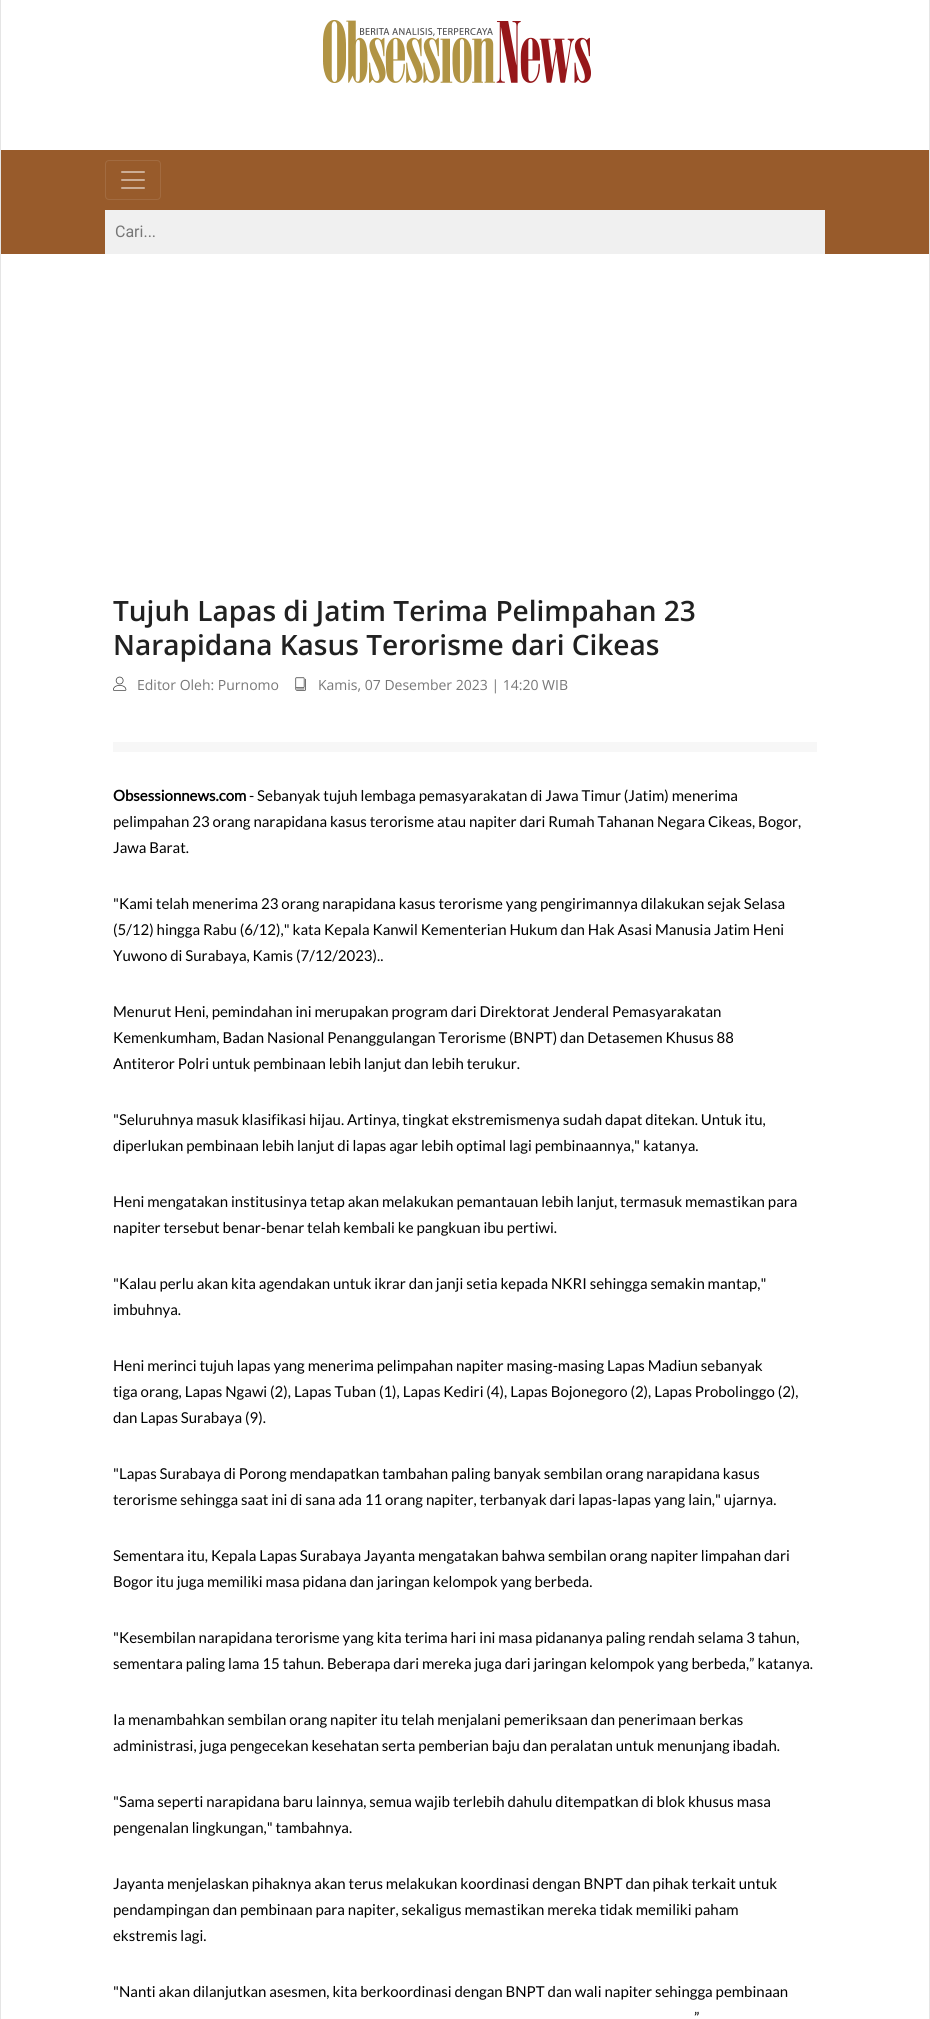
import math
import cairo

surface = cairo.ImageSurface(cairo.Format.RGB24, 930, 2019)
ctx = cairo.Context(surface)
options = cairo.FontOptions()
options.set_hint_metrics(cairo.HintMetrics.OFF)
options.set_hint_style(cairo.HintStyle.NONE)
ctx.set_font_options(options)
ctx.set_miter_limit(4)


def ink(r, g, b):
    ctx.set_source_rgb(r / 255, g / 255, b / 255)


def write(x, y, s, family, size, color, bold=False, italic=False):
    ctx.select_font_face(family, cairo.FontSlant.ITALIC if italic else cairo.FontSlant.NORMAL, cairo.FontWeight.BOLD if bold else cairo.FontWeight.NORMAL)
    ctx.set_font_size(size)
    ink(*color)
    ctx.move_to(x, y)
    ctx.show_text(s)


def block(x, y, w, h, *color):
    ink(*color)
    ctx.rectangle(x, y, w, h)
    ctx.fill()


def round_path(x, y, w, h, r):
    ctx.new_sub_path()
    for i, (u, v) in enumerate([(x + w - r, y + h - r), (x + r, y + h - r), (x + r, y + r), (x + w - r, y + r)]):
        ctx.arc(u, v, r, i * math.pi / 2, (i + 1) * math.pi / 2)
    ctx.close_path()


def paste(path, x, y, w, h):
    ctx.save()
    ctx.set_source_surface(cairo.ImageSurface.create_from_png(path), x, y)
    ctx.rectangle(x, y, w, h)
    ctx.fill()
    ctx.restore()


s1 = dict(family="Roboto", size=16, color=(119, 119, 119))
s2 = dict(family="Open Sans SemiBold", size=28, color=(33, 33, 33))
s3 = dict(family="Open Sans", size=14, color=(119, 119, 119))
s4 = dict(family="Lato", size=15, color=(0, 0, 0), bold=True)
s5 = dict(family="Lato", size=15, color=(0, 0, 0))

ink(255, 255, 255)
ctx.paint()
block(929, 0, 1, 2019, 229, 229, 229)
block(0, 0, 1, 2019, 229, 229, 229)
paste("pic1.png", 323, 20, 268, 63)
block(1, 150, 928, 104, 152, 91, 43)
round_path(105.5, 160.5, 55, 39, 3.5)
ink(162, 107, 64)
ctx.set_line_width(1)
ctx.stroke()
paste("pic2.png", 121, 171, 24, 18)
block(105, 210, 720, 44, 240, 240, 240)
write(115, 237, "Cari...", **s1)
write(113, 621, "Tujuh Lapas di Jatim Terima Pelimpahan 23", **s2)
write(113, 655, "Narapidana Kasus Terorisme dari Cikeas", **s2)
paste("pic3.png", 113, 676, 14, 15)
write(137, 690, "Editor Oleh: Purnomo", **s3)
paste("pic4.png", 295, 677, 11, 14)
write(318, 690, "Kamis, 07 Desember 2023 | 14:20 WIB", **s3)
block(113, 742, 704, 10, 247, 247, 247)
write(113, 801, "Obsessionnews.com", **s4)
write(249, 801, "- Sebanyak tujuh lembaga pemasyarakatan di Jawa Timur (Jatim) menerima", **s5)
write(113, 827, "pelimpahan 23 orang narapidana kasus terorisme atau napiter dari Rumah Tahanan Negara Cikeas, Bogor,", **s5)
write(113, 853, "Jawa Barat.", **s5)
write(113, 909, "\"Kami telah menerima 23 orang narapidana kasus terorisme yang pengirimannya dilakukan sejak Selasa", **s5)
write(113, 935, "(5/12) hingga Rabu (6/12),\" kata Kepala Kanwil Kementerian Hukum dan Hak Asasi Manusia Jatim Heni", **s5)
write(113, 961, "Yuwono di Surabaya, Kamis (7/12/2023)..", **s5)
write(113, 1017, "Menurut Heni, pemindahan ini merupakan program dari Direktorat Jenderal Pemasyarakatan", **s5)
write(113, 1043, "Kemenkumham, Badan Nasional Penanggulangan Terorisme (BNPT) dan Detasemen Khusus 88", **s5)
write(113, 1069, "Antiteror Polri untuk pembinaan lebih lanjut dan lebih terukur.", **s5)
write(113, 1125, "\"Seluruhnya masuk klasifikasi hijau. Artinya, tingkat ekstremismenya sudah dapat ditekan. Untuk itu,", **s5)
write(113, 1151, "diperlukan pembinaan lebih lanjut di lapas agar lebih optimal lagi pembinaannya,\" katanya.", **s5)
write(113, 1207, "Heni mengatakan institusinya tetap akan melakukan pemantauan lebih lanjut, termasuk memastikan para", **s5)
write(113, 1233, "napiter tersebut benar-benar telah kembali ke pangkuan ibu pertiwi.", **s5)
write(113, 1289, "\"Kalau perlu akan kita agendakan untuk ikrar dan janji setia kepada NKRI sehingga semakin mantap,\"", **s5)
write(113, 1315, "imbuhnya.", **s5)
write(113, 1371, "Heni merinci tujuh lapas yang menerima pelimpahan napiter masing-masing Lapas Madiun sebanyak", **s5)
write(113, 1397, "tiga orang, Lapas Ngawi (2), Lapas Tuban (1), Lapas Kediri (4), Lapas Bojonegoro (2), Lapas Probolinggo (2),", **s5)
write(113, 1423, "dan Lapas Surabaya (9).", **s5)
write(113, 1479, "\"Lapas Surabaya di Porong mendapatkan tambahan paling banyak sembilan orang narapidana kasus", **s5)
write(113, 1505, "terorisme sehingga saat ini di sana ada 11 orang napiter, terbanyak dari lapas-lapas yang lain,\" ujarnya.", **s5)
write(113, 1561, "Sementara itu, Kepala Lapas Surabaya Jayanta mengatakan bahwa sembilan orang napiter limpahan dari", **s5)
write(113, 1587, "Bogor itu juga memiliki masa pidana dan jaringan kelompok yang berbeda.", **s5)
write(113, 1643, "\"Kesembilan narapidana terorisme yang kita terima hari ini masa pidananya paling rendah selama 3 tahun,", **s5)
write(113, 1669, "sementara paling lama 15 tahun. Beberapa dari mereka juga dari jaringan kelompok yang berbeda,” katanya.", **s5)
write(113, 1725, "Ia menambahkan sembilan orang napiter itu telah menjalani pemeriksaan dan penerimaan berkas", **s5)
write(113, 1751, "administrasi, juga pengecekan kesehatan serta pemberian baju dan peralatan untuk menunjang ibadah.", **s5)
write(113, 1807, "\"Sama seperti narapidana baru lainnya, semua wajib terlebih dahulu ditempatkan di blok khusus masa", **s5)
write(113, 1833, "pengenalan lingkungan,\" tambahnya.", **s5)
write(113, 1889, "Jayanta menjelaskan pihaknya akan terus melakukan koordinasi dengan BNPT dan pihak terkait untuk", **s5)
write(113, 1915, "pendampingan dan pembinaan para napiter, sekaligus memastikan mereka tidak memiliki paham", **s5)
write(113, 1941, "ekstremis lagi.", **s5)
write(113, 1997, "\"Nanti akan dilanjutkan asesmen, kita berkoordinasi dengan BNPT dan wali napiter sehingga pembinaan", **s5)
write(694, 2023, "”", **s5)
surface.write_to_png("screenshot.png")
